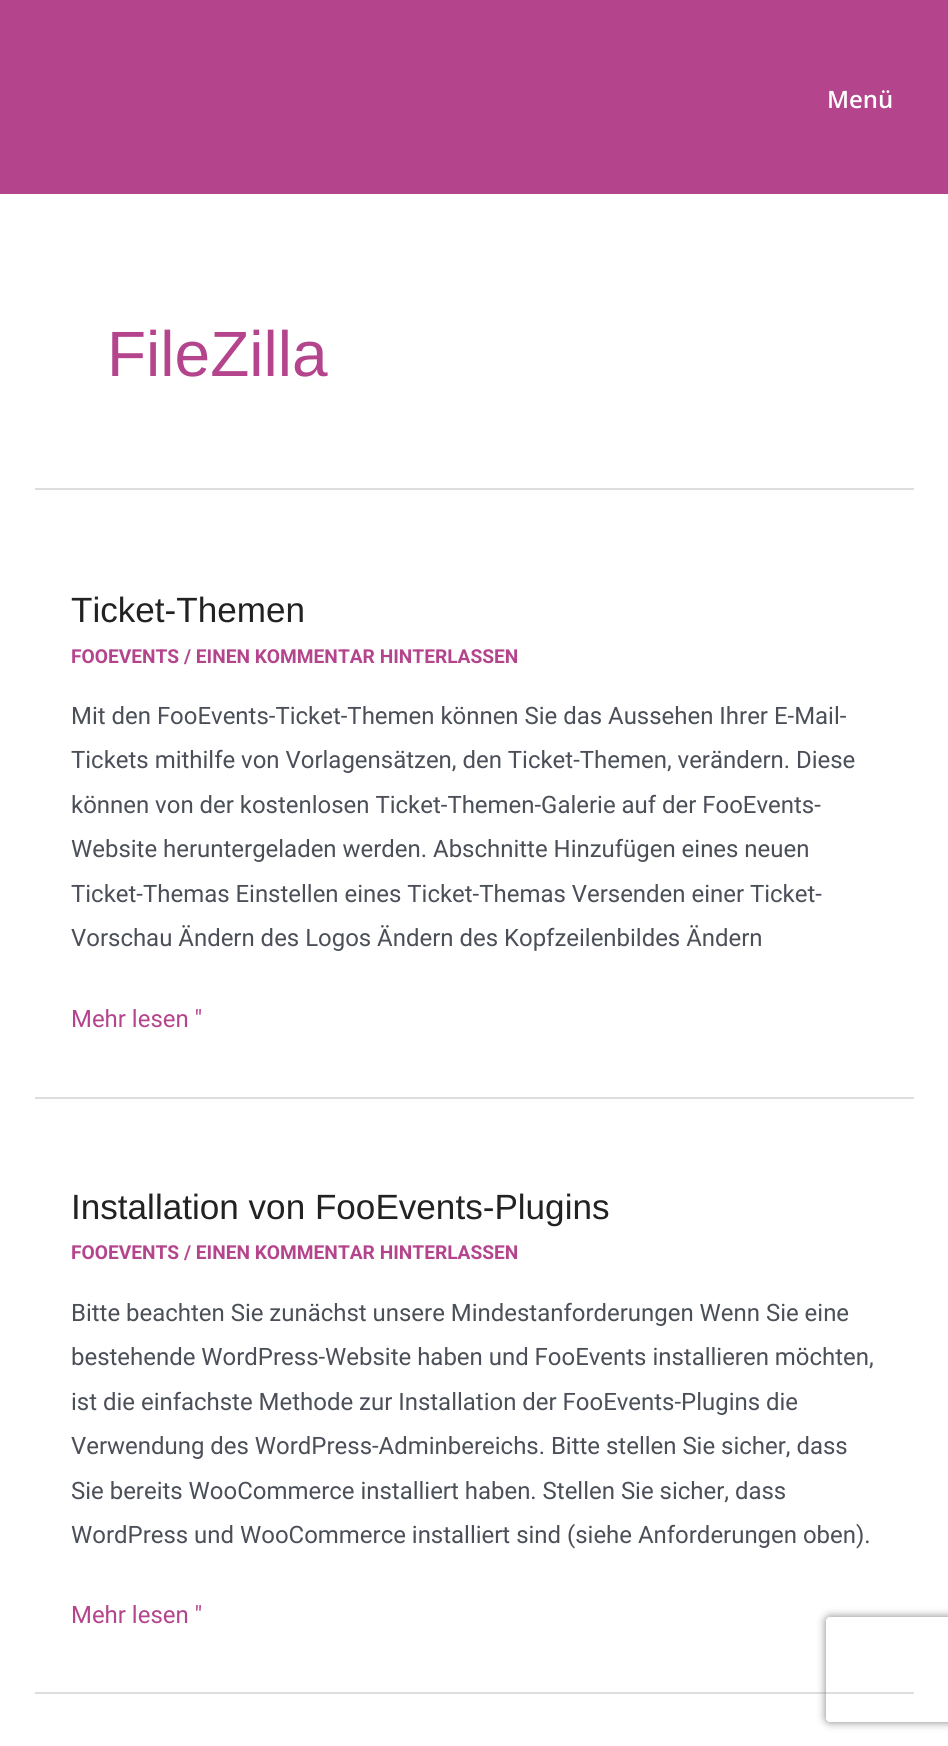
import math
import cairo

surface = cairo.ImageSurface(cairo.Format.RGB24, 948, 1746)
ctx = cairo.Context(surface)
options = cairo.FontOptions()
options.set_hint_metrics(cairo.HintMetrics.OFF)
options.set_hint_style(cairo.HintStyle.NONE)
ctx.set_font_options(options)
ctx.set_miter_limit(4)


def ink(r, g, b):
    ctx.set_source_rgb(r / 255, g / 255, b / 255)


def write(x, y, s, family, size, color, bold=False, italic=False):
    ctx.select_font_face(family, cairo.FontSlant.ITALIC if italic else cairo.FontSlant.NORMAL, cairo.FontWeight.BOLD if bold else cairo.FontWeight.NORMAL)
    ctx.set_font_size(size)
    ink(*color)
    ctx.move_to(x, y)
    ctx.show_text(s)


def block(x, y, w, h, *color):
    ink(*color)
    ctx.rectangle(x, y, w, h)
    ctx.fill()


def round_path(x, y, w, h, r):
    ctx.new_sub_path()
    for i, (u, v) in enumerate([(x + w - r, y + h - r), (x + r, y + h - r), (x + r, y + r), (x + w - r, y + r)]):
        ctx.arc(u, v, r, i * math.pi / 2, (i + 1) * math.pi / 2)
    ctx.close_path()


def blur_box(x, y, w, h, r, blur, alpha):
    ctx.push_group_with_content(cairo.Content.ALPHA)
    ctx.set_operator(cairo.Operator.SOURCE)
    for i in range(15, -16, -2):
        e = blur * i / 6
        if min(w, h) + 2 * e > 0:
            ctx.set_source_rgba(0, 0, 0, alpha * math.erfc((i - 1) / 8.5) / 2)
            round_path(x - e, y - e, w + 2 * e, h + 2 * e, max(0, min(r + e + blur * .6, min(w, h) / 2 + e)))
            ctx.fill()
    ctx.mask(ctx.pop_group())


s1 = dict(family="Open Sans SemiBold", size=23.95, color=(255, 255, 255))
s2 = dict(family="Liberation Sans", size=64, color=(180, 69, 141))
s3 = dict(family="Liberation Sans", size=35.1, color=(34, 34, 34))
s4 = dict(family="Roboto", size=19.15, color=(180, 69, 141), bold=True)
s5 = dict(family="Roboto", size=23.95, color=(75, 79, 88))
s6 = dict(family="Roboto", size=23.95, color=(180, 69, 141))

ink(255, 255, 255)
ctx.paint()
block(0, 0, 948, 194, 180, 69, 141)
write(827, 108, "Menü", **s1)
block(35, 488, 879, 2, 221, 221, 221)
write(107, 376, "FileZilla", **s2)
block(35, 1097, 879, 2, 221, 221, 221)
write(71, 622, "Ticket-Themen", **s3)
write(71, 663, "FOOEVENTS / EINEN KOMMENTAR HINTERLASSEN", **s4)
write(71, 724, "Mit den FooEvents-Ticket-Themen können Sie das Aussehen Ihrer E-Mail-", **s5)
write(71, 768, "Tickets mithilfe von Vorlagensätzen, den Ticket-Themen, verändern. Diese", **s5)
write(71, 813, "können von der kostenlosen Ticket-Themen-Galerie auf der FooEvents-", **s5)
write(71, 857, "Website heruntergeladen werden. Abschnitte Hinzufügen eines neuen", **s5)
write(71, 902, "Ticket-Themas Einstellen eines Ticket-Themas Versenden einer Ticket-", **s5)
write(71, 946, "Vorschau Ändern des Logos Ändern des Kopfzeilenbildes Ändern", **s5)
write(71, 1027, "Mehr lesen \"", **s6)
block(35, 1692, 879, 2, 221, 221, 221)
write(71, 1219, "Installation von FooEvents-Plugins", **s3)
write(71, 1259, "FOOEVENTS / EINEN KOMMENTAR HINTERLASSEN", **s4)
write(71, 1321, "Bitte beachten Sie zunächst unsere Mindestanforderungen Wenn Sie eine", **s5)
write(71, 1365, "bestehende WordPress-Website haben und FooEvents installieren möchten,", **s5)
write(71, 1410, "ist die einfachste Methode zur Installation der FooEvents-Plugins die", **s5)
write(71, 1454, "Verwendung des WordPress-Adminbereichs. Bitte stellen Sie sicher, dass", **s5)
write(71, 1499, "Sie bereits WooCommerce installiert haben. Stellen Sie sicher, dass", **s5)
write(71, 1543, "WordPress und WooCommerce installiert sind (siehe Anforderungen oben).", **s5)
write(71, 1623, "Mehr lesen \"", **s6)
ctx.save()
ctx.set_fill_rule(cairo.FillRule.EVEN_ODD)
ctx.new_path()
ctx.move_to(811, 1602)
ctx.line_to(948, 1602)
ctx.line_to(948, 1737)
ctx.line_to(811, 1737)
ctx.close_path()
ctx.move_to(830, 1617)
ctx.line_to(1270, 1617)
ctx.curve_to(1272, 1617, 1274, 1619, 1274, 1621)
ctx.line_to(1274, 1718)
ctx.curve_to(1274, 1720, 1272, 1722, 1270, 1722)
ctx.line_to(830, 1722)
ctx.curve_to(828, 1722, 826, 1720, 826, 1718)
ctx.line_to(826, 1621)
ctx.curve_to(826, 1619, 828, 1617, 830, 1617)
ctx.close_path()
ctx.clip()
ink(128, 128, 128)
blur_box(826, 1617, 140, 105, 4, 4.5, 1)
ctx.restore()
surface.write_to_png("screenshot.png")
